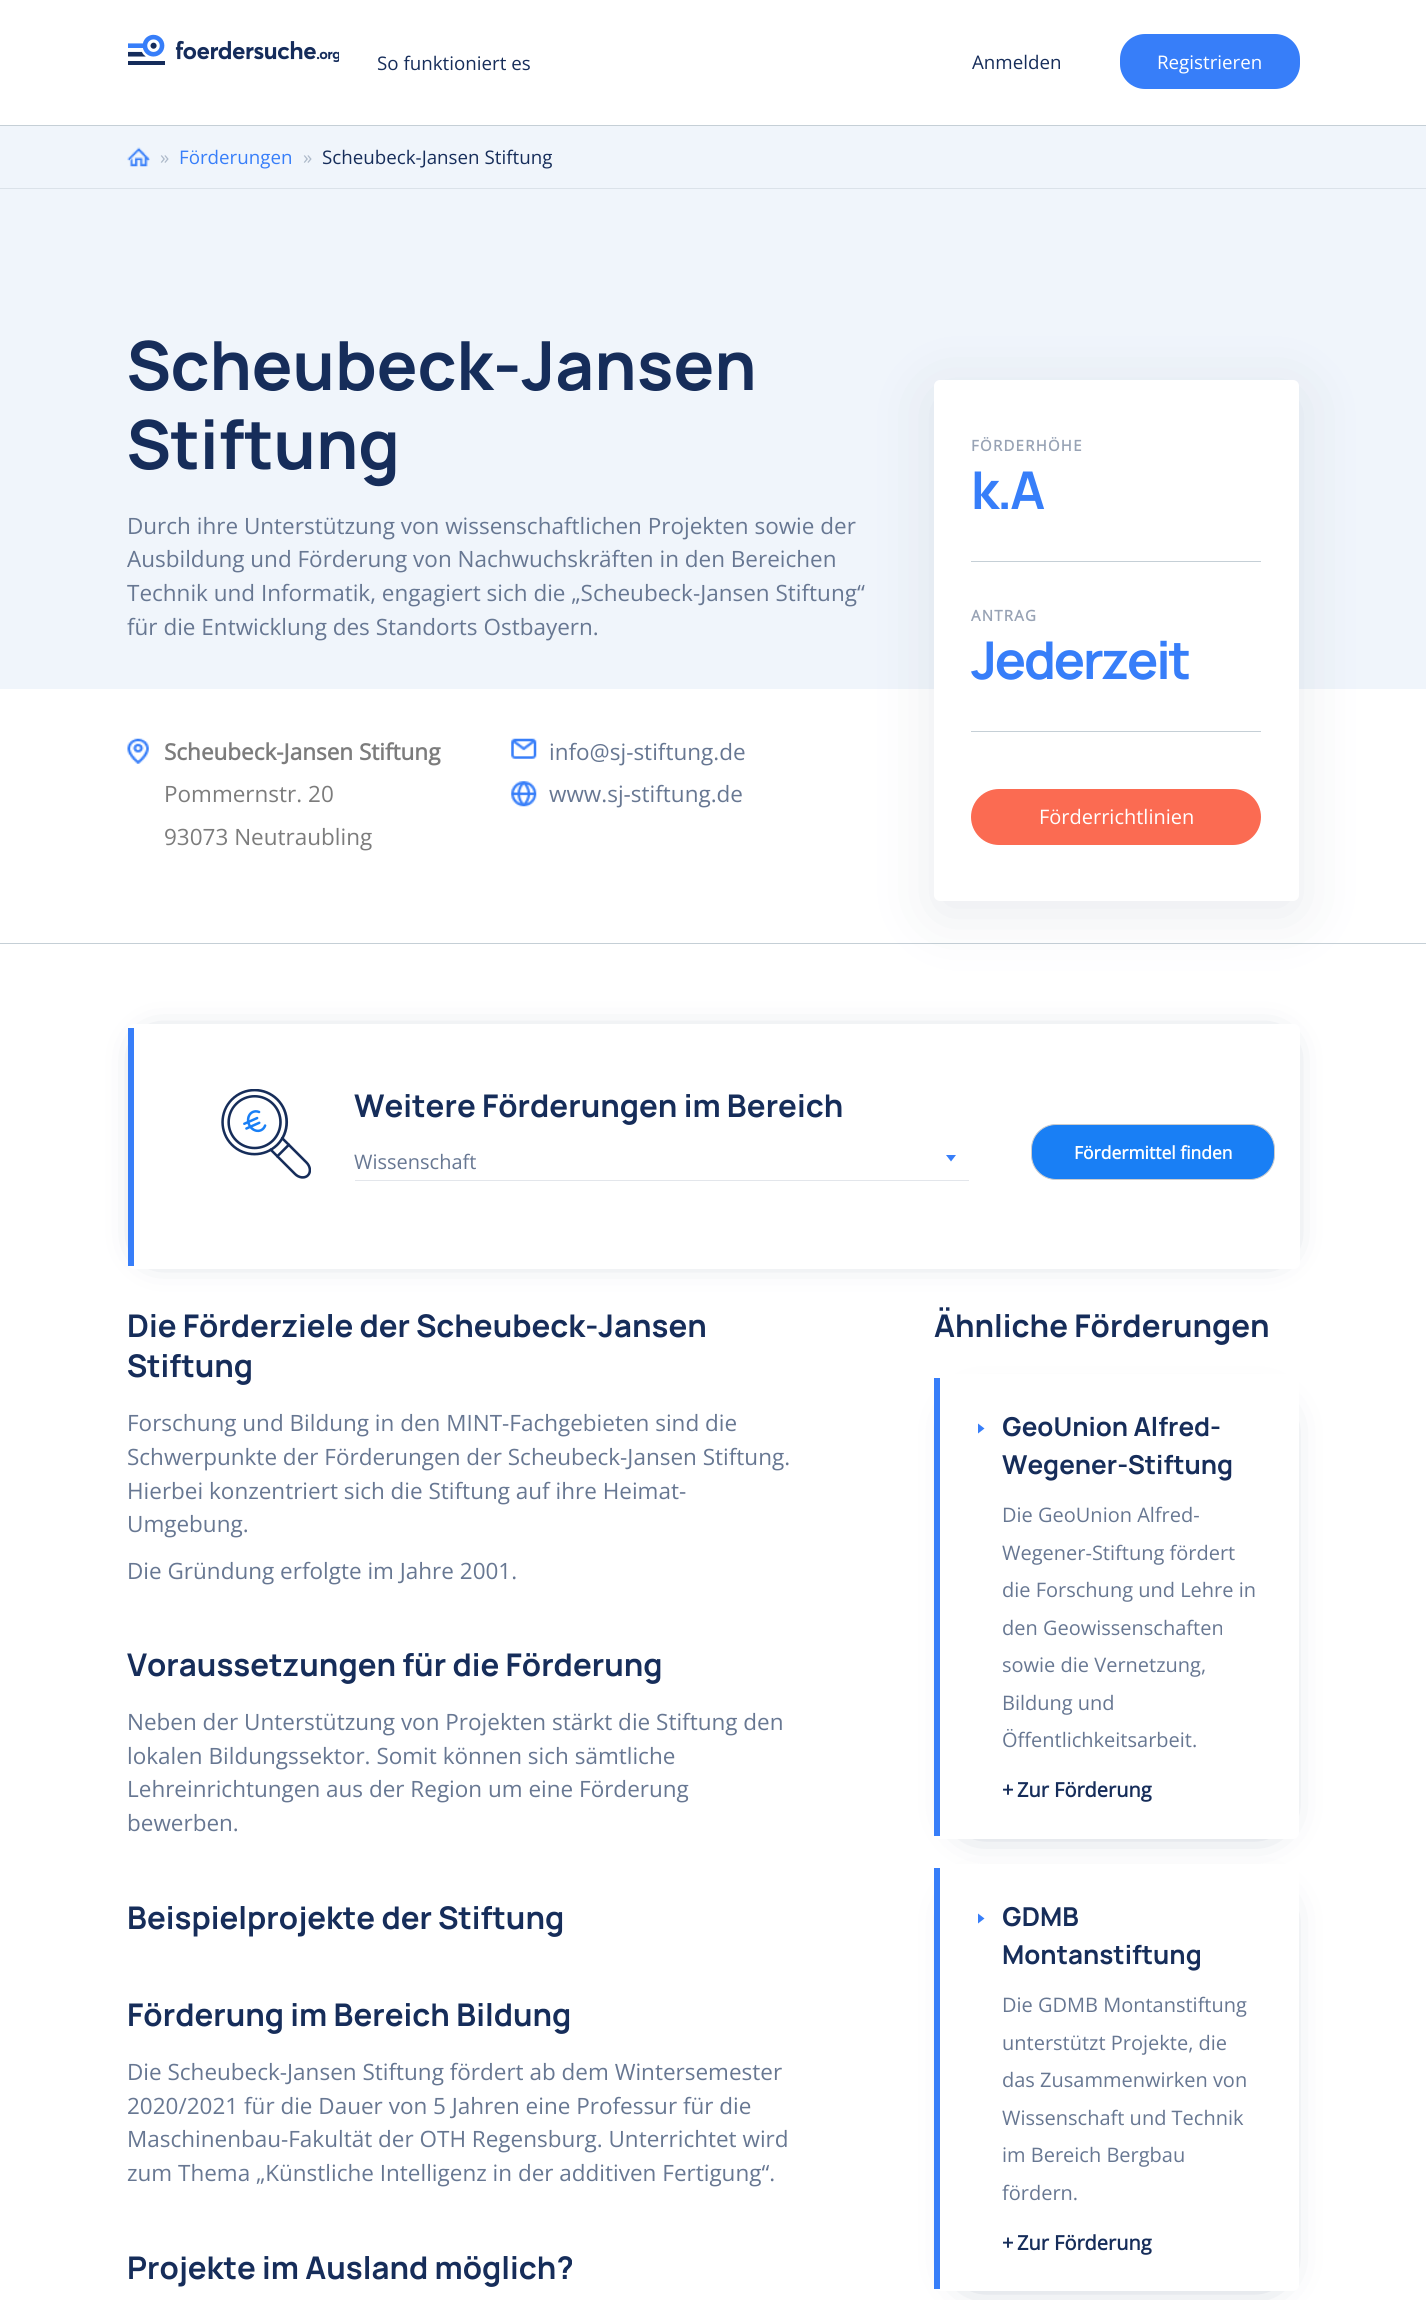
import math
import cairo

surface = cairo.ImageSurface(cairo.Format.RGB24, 1426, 2300)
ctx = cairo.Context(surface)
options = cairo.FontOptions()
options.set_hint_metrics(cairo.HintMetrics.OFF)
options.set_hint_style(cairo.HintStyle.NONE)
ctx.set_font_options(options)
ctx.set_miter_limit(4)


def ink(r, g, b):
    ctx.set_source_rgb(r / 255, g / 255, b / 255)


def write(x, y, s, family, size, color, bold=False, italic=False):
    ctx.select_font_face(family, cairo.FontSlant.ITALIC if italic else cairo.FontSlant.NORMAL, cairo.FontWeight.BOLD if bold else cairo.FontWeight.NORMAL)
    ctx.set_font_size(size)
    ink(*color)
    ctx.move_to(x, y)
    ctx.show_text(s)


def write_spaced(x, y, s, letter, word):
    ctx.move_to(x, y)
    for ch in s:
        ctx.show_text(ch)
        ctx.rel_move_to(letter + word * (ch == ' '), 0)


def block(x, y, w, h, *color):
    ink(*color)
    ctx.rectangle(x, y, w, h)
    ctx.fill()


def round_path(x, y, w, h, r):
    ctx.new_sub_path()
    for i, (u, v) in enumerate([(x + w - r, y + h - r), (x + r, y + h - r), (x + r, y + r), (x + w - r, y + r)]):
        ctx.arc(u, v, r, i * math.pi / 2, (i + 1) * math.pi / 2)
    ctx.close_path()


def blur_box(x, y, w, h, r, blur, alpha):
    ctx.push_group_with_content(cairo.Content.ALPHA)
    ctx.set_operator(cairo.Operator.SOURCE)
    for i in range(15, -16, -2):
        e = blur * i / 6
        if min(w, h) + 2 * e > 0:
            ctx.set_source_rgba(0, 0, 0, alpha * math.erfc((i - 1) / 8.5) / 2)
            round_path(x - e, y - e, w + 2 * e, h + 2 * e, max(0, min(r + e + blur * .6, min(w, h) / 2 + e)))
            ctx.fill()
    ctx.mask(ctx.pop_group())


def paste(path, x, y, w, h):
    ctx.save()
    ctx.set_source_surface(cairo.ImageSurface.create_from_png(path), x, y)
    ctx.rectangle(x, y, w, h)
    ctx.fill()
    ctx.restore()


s1 = dict(family="Open Sans", size=18.75, color=(22, 45, 90))
s2 = dict(family="Open Sans", size=18.75, color=(255, 255, 255))
s3 = dict(family="Open Sans", size=18.75, color=(173, 185, 201))
s4 = dict(family="Open Sans", size=18.75, color=(55, 126, 249))
s5 = dict(family="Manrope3", size=65, color=(22, 45, 90), bold=True)
s6 = dict(family="Open Sans", size=22.5, color=(103, 119, 146))
s7 = dict(family="Open Sans", size=22.5, color=(124, 124, 124), bold=True)
s8 = dict(family="Open Sans", size=22.5, color=(124, 124, 124))
s9 = dict(family="Open Sans", size=20, color=(255, 255, 255))
s10 = dict(family="Manrope3", size=30, color=(22, 45, 90), bold=True)
s11 = dict(family="Open Sans", size=20, color=(103, 119, 146))
s12 = dict(family="Open Sans", size=17.5, color=(255, 255, 255), bold=True)
s13 = dict(family="Manrope3", size=25, color=(22, 45, 90), bold=True)
s14 = dict(family="Open Sans", size=20, color=(22, 45, 90), bold=True)

ink(255, 255, 255)
ctx.paint()
block(0, 125, 1426, 1, 197, 207, 214)
paste("pic1.png", 128, 34, 211, 31)
write(377, 70, "So funktioniert es", **s1)
write(972, 69, "Anmelden", **s1)
ink(55, 126, 249)
round_path(1120, 34, 180, 55, 25)
ctx.fill()
write(1157, 69, "Registrieren", **s2)
block(0, 126, 1426, 62, 240, 245, 251)
block(0, 188, 1426, 1, 219, 226, 233)
paste("pic2.png", 127, 147, 23, 20)
write(160, 164, "»", **s3)
write(179, 164, "Förderungen", **s4)
write(303, 164, "»", **s3)
write(322, 164, "Scheubeck-Jansen Stiftung", **s1)
block(0, 189, 1426, 500, 240, 245, 251)
write(127, 390, "Scheubeck-Jansen", **s5)
write(127, 469, "Stiftung", **s5)
write(127, 534, "Durch ihre Unterstützung von wissenschaftlichen Projekten sowie der", **s6)
write(127, 567, "Ausbildung und Förderung von Nachwuchskräften in den Bereichen", **s6)
write(127, 601, "Technik und Informatik, engagiert sich die „Scheubeck-Jansen Stiftung“", **s6)
write(127, 635, "für die Entwicklung des Standorts Ostbayern.", **s6)
block(0, 943, 1319, 1, 197, 207, 214)
paste("pic3.png", 127, 738, 22, 26)
write(164, 760, "Scheubeck-Jansen Stiftung", **s7)
write(164, 802, "Pommernstr. 20", **s8)
write(164, 845, "93073 Neutraubling", **s8)
paste("pic4.png", 511, 738, 26, 21)
write(549, 760, "info@sj-stiftung.de", **s6)
paste("pic5.png", 511, 781, 26, 26)
write(549, 802, "www.sj-stiftung.de", **s6)
ink(103, 119, 146)
blur_box(934, 393, 365, 521, 6, 31, 0.15)
ink(255, 255, 255)
round_path(934, 380, 365, 521, 6)
ctx.fill()
block(971, 561, 290, 1, 197, 207, 214)
ctx.select_font_face("Open Sans", cairo.FontSlant.NORMAL, cairo.FontWeight.BOLD)
ctx.set_font_size(15)
ink(152, 163, 181)
write_spaced(971, 451, "FÖRDERHÖHE", 1.25, 0)
ctx.select_font_face("Manrope3", cairo.FontSlant.NORMAL, cairo.FontWeight.BOLD)
ctx.set_font_size(50)
ink(55, 126, 249)
write_spaced(971, 509, "k.A", -2.25, 0)
block(971, 731, 290, 1, 197, 207, 214)
ctx.select_font_face("Open Sans", cairo.FontSlant.NORMAL, cairo.FontWeight.BOLD)
ctx.set_font_size(15)
ink(152, 163, 181)
write_spaced(971, 621, "ANTRAG", 1.25, 0)
ctx.select_font_face("Manrope3", cairo.FontSlant.NORMAL, cairo.FontWeight.BOLD)
ctx.set_font_size(50)
ink(55, 126, 249)
write_spaced(971, 679, "Jederzeit", -2.25, 0)
ink(251, 107, 82)
round_path(971, 789, 290, 56, 28)
ctx.fill()
write(1039, 824, "Förderrichtlinien", **s9)
block(1319, 943, 107, 1, 197, 207, 214)
ink(103, 119, 146)
blur_box(153, 1049, 1122, 195, 0, 19, 1)
ink(255, 255, 255)
round_path(128, 1024, 1172, 245, 6)
ctx.fill()
block(128, 1028, 6, 238, 55, 126, 249)
paste("pic6.png", 221, 1089, 90, 90)
write(354, 1117, "Weitere Förderungen im Bereich", **s10)
ink(55, 126, 249)
ctx.set_fill_rule(cairo.FillRule.EVEN_ODD)
ctx.new_path()
ctx.move_to(951, 1161.5)
ctx.line_to(956, 1155)
ctx.line_to(946, 1155)
ctx.close_path()
ctx.fill()
block(355, 1180, 614, 1, 227, 230, 235)
write(354, 1169, "Wissenschaft", **s11)
ink(25, 127, 245)
round_path(1031.5, 1124.5, 243, 55, 24.5)
ctx.fill_preserve()
ink(204, 204, 204)
ctx.set_line_width(1)
ctx.stroke()
write(1074, 1159, "Fördermittel finden", **s12)
write(127, 1337, "Die Förderziele der Scheubeck-Jansen", **s10)
write(127, 1377, "Stiftung", **s10)
write(127, 1431, "Forschung und Bildung in den MINT-Fachgebieten sind die", **s6)
write(127, 1465, "Schwerpunkte der Förderungen der Scheubeck-Jansen Stiftung.", **s6)
write(127, 1499, "Hierbei konzentriert sich die Stiftung auf ihre Heimat-", **s6)
write(127, 1532, "Umgebung.", **s6)
write(127, 1579, "Die Gründung erfolgte im Jahre 2001.", **s6)
write(127, 1676, "Voraussetzungen für die Förderung", **s10)
write(127, 1730, "Neben der Unterstützung von Projekten stärkt die Stiftung den", **s6)
write(127, 1764, "lokalen Bildungssektor. Somit können sich sämtliche", **s6)
write(127, 1797, "Lehreinrichtungen aus der Region um eine Förderung", **s6)
write(127, 1831, "bewerben.", **s6)
write(127, 1929, "Beispielprojekte der Stiftung", **s10)
write(127, 2026, "Förderung im Bereich Bildung", **s10)
write(127, 2080, "Die Scheubeck-Jansen Stiftung fördert ab dem Wintersemester", **s6)
write(127, 2114, "2020/2021 für die Dauer von 5 Jahren eine Professur für die", **s6)
write(127, 2147, "Maschinenbau-Fakultät der OTH Regensburg. Unterrichtet wird", **s6)
write(127, 2181, "zum Thema „Künstliche Intelligenz in der additiven Fertigung“.", **s6)
write(127, 2279, "Projekte im Ausland möglich?", **s10)
write(934, 1337, "Ähnliche Förderungen", **s10)
ink(103, 119, 146)
blur_box(973, 1421, 295, 395, 0, 22, 1)
ink(255, 255, 255)
round_path(934, 1374, 365, 465, 6)
ctx.fill()
block(934, 1378, 6, 458, 55, 126, 249)
ctx.new_path()
ctx.move_to(984.5, 1428.5)
ctx.line_to(978, 1423.5)
ctx.line_to(978, 1433.5)
ctx.close_path()
ctx.fill()
write(1002, 1436, "GeoUnion Alfred-", **s13)
write(1002, 1474, "Wegener-Stiftung", **s13)
write(1002, 1522, "Die GeoUnion Alfred-", **s11)
write(1002, 1560, "Wegener-Stiftung fördert", **s11)
write(1002, 1597, "die Forschung und Lehre in", **s11)
write(1002, 1635, "den Geowissenschaften", **s11)
write(1002, 1672, "sowie die Vernetzung,", **s11)
write(1002, 1710, "Bildung und", **s11)
write(1002, 1747, "Öffentlichkeitsarbeit.", **s11)
write(1002, 1797, "+", **s14)
write(1017, 1797, "Zur Förderung", **s14)
ink(103, 119, 146)
blur_box(973, 1911, 295, 358, 0, 22, 1)
ink(255, 255, 255)
round_path(934, 1864, 365, 427, 6)
ctx.fill()
block(934, 1868, 6, 421, 55, 126, 249)
ctx.new_path()
ctx.move_to(984.5, 1918.5)
ctx.line_to(978, 1913.5)
ctx.line_to(978, 1923.5)
ctx.close_path()
ctx.fill()
write(1002, 1926, "GDMB", **s13)
write(1002, 1964, "Montanstiftung", **s13)
write(1002, 2012, "Die GDMB Montanstiftung", **s11)
write(1002, 2050, "unterstützt Projekte, die", **s11)
write(1002, 2087, "das Zusammenwirken von", **s11)
write(1002, 2125, "Wissenschaft und Technik", **s11)
write(1002, 2162, "im Bereich Bergbau", **s11)
write(1002, 2200, "fördern.", **s11)
write(1002, 2250, "+", **s14)
write(1017, 2250, "Zur Förderung", **s14)
surface.write_to_png("screenshot.png")
